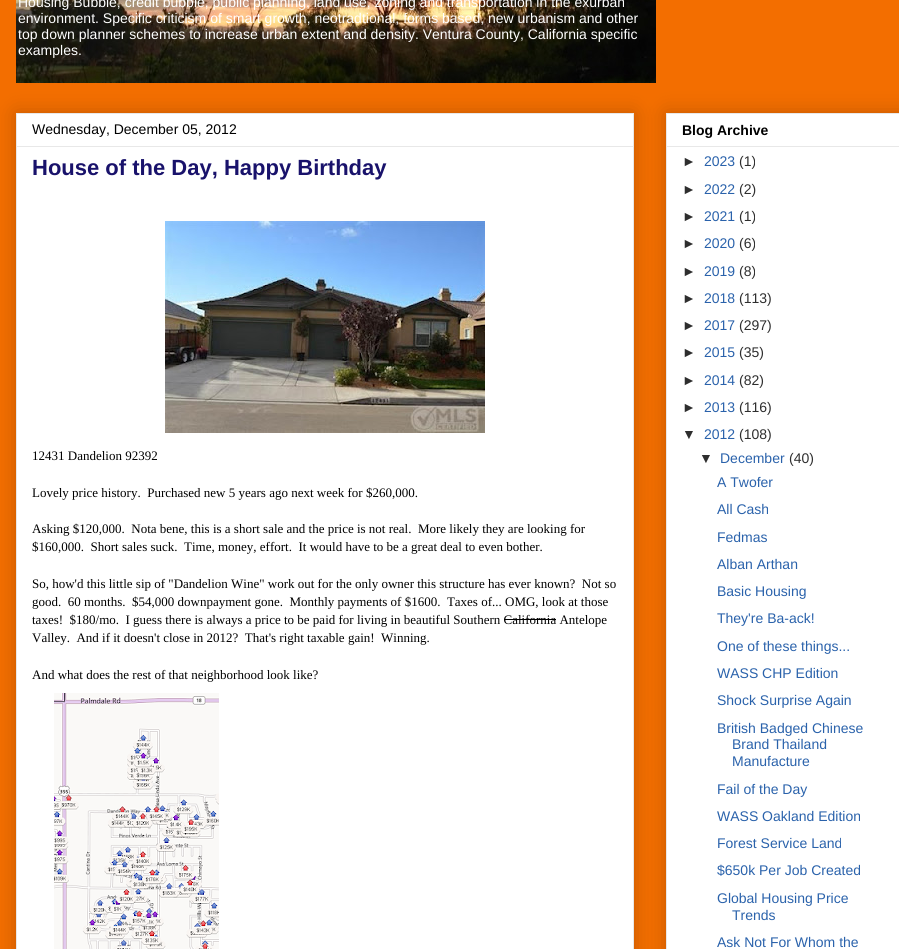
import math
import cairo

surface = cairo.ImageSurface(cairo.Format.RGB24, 899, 949)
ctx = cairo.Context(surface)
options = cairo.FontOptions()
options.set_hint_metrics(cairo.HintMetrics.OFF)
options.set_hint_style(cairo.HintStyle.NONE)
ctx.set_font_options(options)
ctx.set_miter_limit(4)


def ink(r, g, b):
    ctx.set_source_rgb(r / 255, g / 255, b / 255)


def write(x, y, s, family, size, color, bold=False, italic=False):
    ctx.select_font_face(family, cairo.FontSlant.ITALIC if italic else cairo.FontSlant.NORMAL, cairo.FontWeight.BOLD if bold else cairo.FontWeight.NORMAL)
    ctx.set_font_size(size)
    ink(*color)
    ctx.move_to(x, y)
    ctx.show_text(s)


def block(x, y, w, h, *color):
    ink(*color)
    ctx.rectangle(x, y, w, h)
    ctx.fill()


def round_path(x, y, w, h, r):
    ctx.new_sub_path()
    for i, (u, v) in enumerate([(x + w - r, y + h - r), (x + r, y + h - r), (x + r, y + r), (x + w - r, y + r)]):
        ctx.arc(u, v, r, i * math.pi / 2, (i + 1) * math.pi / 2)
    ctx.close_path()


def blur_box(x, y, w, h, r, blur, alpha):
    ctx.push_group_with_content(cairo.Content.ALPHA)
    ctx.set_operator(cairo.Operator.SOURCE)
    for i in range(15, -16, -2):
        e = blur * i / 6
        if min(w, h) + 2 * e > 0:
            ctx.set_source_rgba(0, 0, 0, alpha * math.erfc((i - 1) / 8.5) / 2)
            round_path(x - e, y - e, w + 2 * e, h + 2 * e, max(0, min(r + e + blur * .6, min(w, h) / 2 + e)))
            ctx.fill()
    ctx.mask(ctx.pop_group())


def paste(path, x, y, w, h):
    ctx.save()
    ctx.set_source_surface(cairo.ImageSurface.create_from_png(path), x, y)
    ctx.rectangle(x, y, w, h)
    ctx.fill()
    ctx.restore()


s1 = dict(family="Arimo", size=14, color=(255, 255, 255))
s2 = dict(family="Liberation Sans", size=14, color=(0, 0, 0))
s3 = dict(family="Liberation Sans", size=22, color=(25, 18, 107), bold=True)
s4 = dict(family="Liberation Serif", size=13, color=(0, 0, 0))
s5 = dict(family="Liberation Sans", size=14, color=(0, 0, 0), bold=True)
s6 = dict(family="Liberation Sans", size=14, color=(46, 46, 46))
s7 = dict(family="Liberation Sans", size=14, color=(42, 98, 171))

ink(243, 110, 0)
ctx.paint()
paste("pic1.png", 16, 0, 640, 83)
write(18, 7, "Housing Bubble, credit bubble, public planning, land use, zoning and transportation in the exurban", **s1)
write(18, 23, "environment. Specific criticism of smart growth, neotradtional, forms based, new urbanism and other", **s1)
write(18, 39, "top down planner schemes to increase urban extent and density. Ventura County, California specific", **s1)
write(18, 55, "examples.", **s1)
ink(0, 0, 0)
blur_box(16, 113, 618, 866, 0, 10, 0.2)
ink(255, 255, 255)
ctx.rectangle(16.5, 113.5, 617, 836)
ctx.fill_preserve()
ink(232, 232, 232)
ctx.set_line_width(1)
ctx.stroke()
write(32, 134, "Wednesday, December 05, 2012", **s2)
block(17, 146, 616, 1, 232, 232, 232)
write(32, 175, "House of the Day, Happy Birthday", **s3)
paste("pic2.png", 165, 221, 320, 212)
write(32, 460, "12431 Dandelion 92392", **s4)
write(32, 497, "Lovely price history.  Purchased new 5 years ago next week for $260,000.", **s4)
write(32, 533, "Asking $120,000.  Nota bene, this is a short sale and the price is not real.  More likely they are looking for", **s4)
write(32, 551, "$160,000.  Short sales suck.  Time, money, effort.  It would have to be a great deal to even bother.", **s4)
write(32, 588, "So, how'd this little sip of \"Dandelion Wine\" work out for the only owner this structure has ever known?  Not so", **s4)
write(32, 606, "good.  60 months.  $54,000 downpayment gone.  Monthly payments of $1600.  Taxes of... OMG, look at those", **s4)
write(32, 624, "taxes!  $180/mo.  I guess there is always a price to be paid for living in beautiful Southern California Antelope", **s4)
block(504, 619, 52, 1, 0, 0, 0)
write(32, 642, "Valley.  And if it doesn't close in 2012?  That's right taxable gain!  Winning.", **s4)
write(32, 679, "And what does the rest of that neighborhood look like?", **s4)
paste("pic3.png", 54, 693, 165, 256)
ink(0, 0, 0)
blur_box(666, 113, 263, 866, 0, 10, 0.2)
ink(255, 255, 255)
ctx.rectangle(666.5, 113.5, 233, 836)
ctx.fill_preserve()
ink(232, 232, 232)
ctx.stroke()
write(682, 135, "Blog Archive", **s5)
block(667, 146, 232, 1, 232, 232, 232)
write(682, 166, "►", **s6)
write(704, 166, "2023", **s7)
write(739, 166, "(1)", **s6)
write(682, 194, "►", **s6)
write(704, 194, "2022", **s7)
write(739, 194, "(2)", **s6)
write(682, 221, "►", **s6)
write(704, 221, "2021", **s7)
write(739, 221, "(1)", **s6)
write(682, 248, "►", **s6)
write(704, 248, "2020", **s7)
write(739, 248, "(6)", **s6)
write(682, 276, "►", **s6)
write(704, 276, "2019", **s7)
write(739, 276, "(8)", **s6)
write(682, 303, "►", **s6)
write(704, 303, "2018", **s7)
write(739, 303, "(113)", **s6)
write(682, 330, "►", **s6)
write(704, 330, "2017", **s7)
write(739, 330, "(297)", **s6)
write(682, 357, "►", **s6)
write(704, 357, "2015", **s7)
write(739, 357, "(35)", **s6)
write(682, 385, "►", **s6)
write(704, 385, "2014", **s7)
write(739, 385, "(82)", **s6)
write(682, 412, "►", **s6)
write(704, 412, "2013", **s7)
write(739, 412, "(116)", **s6)
write(682, 439, "▼", **s6)
write(704, 439, "2012", **s7)
write(739, 439, "(108)", **s6)
write(699, 463, "▼", **s6)
write(720, 463, "December", **s7)
write(789, 463, "(40)", **s6)
write(717, 487, "A Twofer", **s7)
write(717, 514, "All Cash", **s7)
write(717, 542, "Fedmas", **s7)
write(717, 569, "Alban Arthan", **s7)
write(717, 596, "Basic Housing", **s7)
write(717, 623, "They're Ba-ack!", **s7)
write(717, 651, "One of these things...", **s7)
write(717, 678, "WASS CHP Edition", **s7)
write(717, 705, "Shock Surprise Again", **s7)
write(717, 733, "British Badged Chinese", **s7)
write(732, 749, "Brand Thailand", **s7)
write(732, 766, "Manufacture", **s7)
write(717, 794, "Fail of the Day", **s7)
write(717, 821, "WASS Oakland Edition", **s7)
write(717, 848, "Forest Service Land", **s7)
write(717, 875, "$650k Per Job Created", **s7)
write(717, 903, "Global Housing Price", **s7)
write(732, 920, "Trends", **s7)
write(717, 947, "Ask Not For Whom the", **s7)
surface.write_to_png("screenshot.png")
